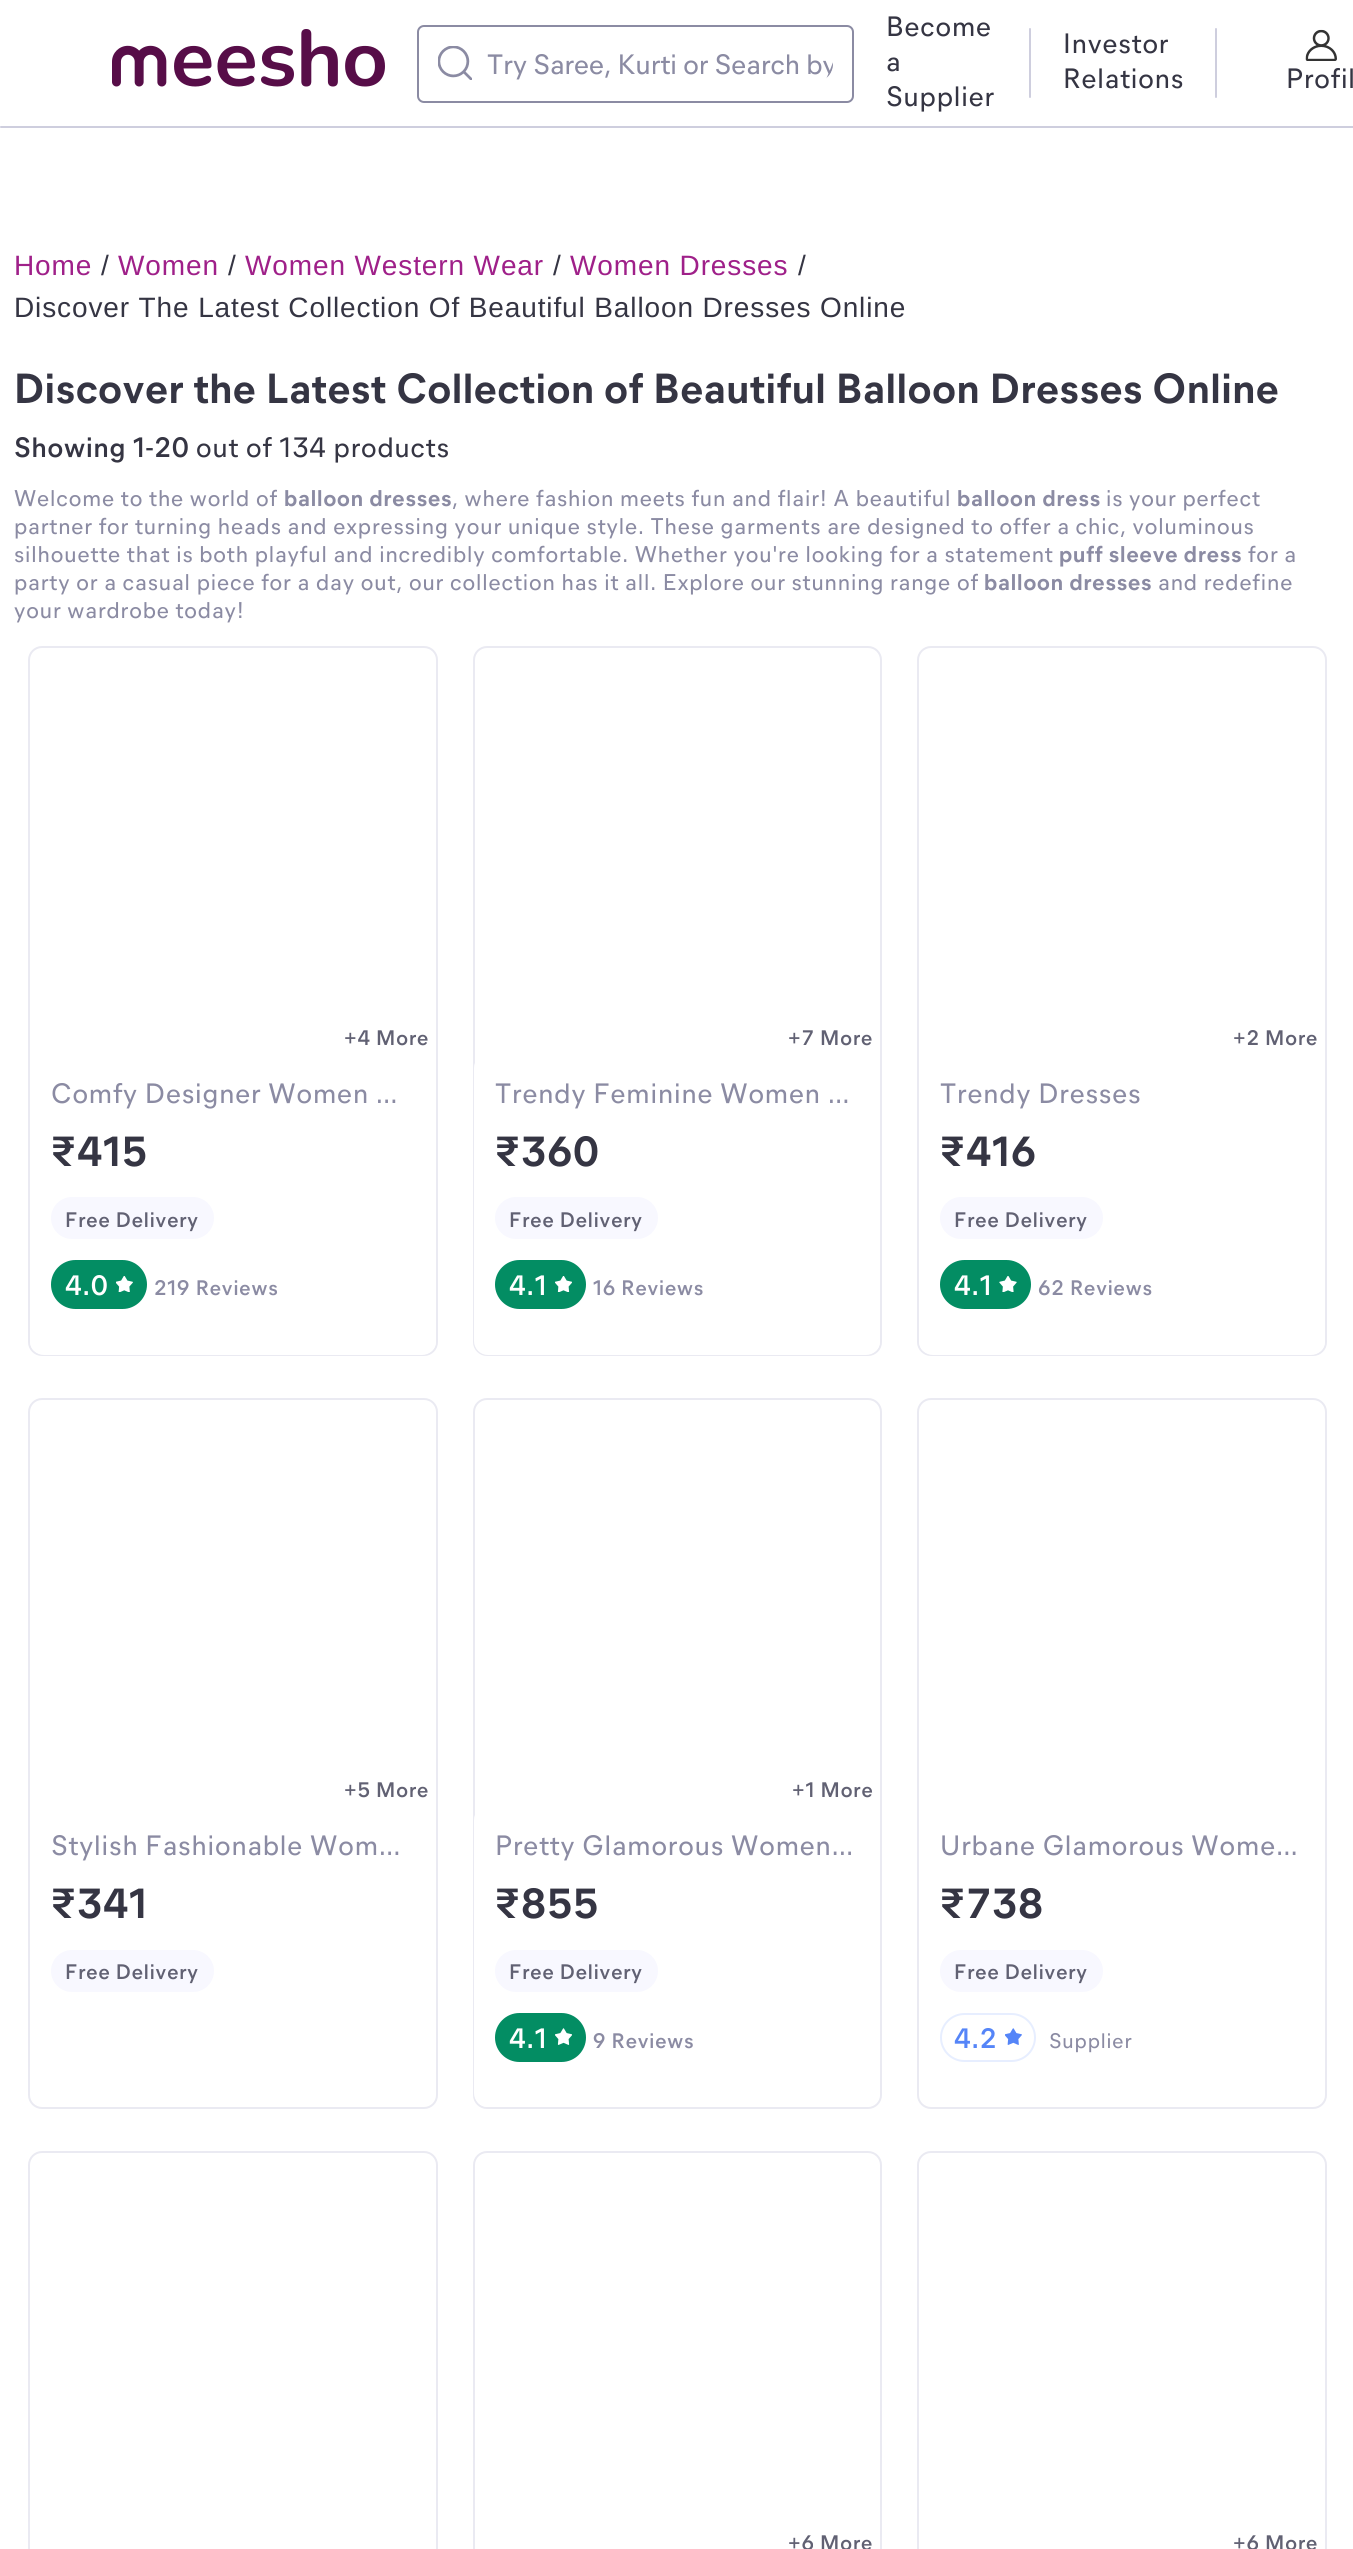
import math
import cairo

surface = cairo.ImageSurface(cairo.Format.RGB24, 1353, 2549)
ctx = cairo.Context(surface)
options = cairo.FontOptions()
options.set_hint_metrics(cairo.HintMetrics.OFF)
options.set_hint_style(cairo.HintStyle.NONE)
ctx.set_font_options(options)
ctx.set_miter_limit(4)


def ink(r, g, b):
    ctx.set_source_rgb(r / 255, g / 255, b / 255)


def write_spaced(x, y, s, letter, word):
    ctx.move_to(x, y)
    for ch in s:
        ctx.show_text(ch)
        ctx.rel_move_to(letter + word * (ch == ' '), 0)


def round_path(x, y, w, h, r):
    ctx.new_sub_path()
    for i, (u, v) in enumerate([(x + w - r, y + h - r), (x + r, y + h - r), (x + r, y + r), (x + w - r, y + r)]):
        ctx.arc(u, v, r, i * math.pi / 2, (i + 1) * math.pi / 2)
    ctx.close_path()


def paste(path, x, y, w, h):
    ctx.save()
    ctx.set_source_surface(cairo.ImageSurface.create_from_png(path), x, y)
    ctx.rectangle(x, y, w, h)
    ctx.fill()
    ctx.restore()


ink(255, 255, 255)
ctx.paint()
paste("pic1.png", 112, 29, 273, 58)
round_path(418, 26, 435, 76, 6)
ink(139, 139, 163)
ctx.stroke()
paste("pic2.png", 438, 46, 34, 34)
ctx.save()
ctx.new_path()
ctx.move_to(487, 46)
ctx.line_to(815, 46)
ctx.curve_to(825, 46, 833, 54, 833, 64)
ctx.curve_to(833, 74, 825, 82, 815, 82)
ctx.line_to(487, 82)
ctx.close_path()
ctx.clip()
ctx.select_font_face("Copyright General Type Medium")
ctx.set_font_size(28)
write_spaced(487, 74, "Try Saree, Kurti or Search by", 0.1, 0)
ctx.restore()
ctx.select_font_face("Copyright General Type Medium")
ctx.set_font_size(28)
ink(53, 53, 67)
write_spaced(886, 36, "Become", 0.88, 0)
write_spaced(886, 71, "a", 0.88, 0)
write_spaced(886, 106, "Supplier", 0.88, 0)
ink(206, 206, 222)
round_path(1029, 28, 2, 70, 1)
ctx.fill()
ink(53, 53, 67)
write_spaced(1063, 53, "Investor", 0.88, 0)
write_spaced(1063, 88, "Relations", 0.88, 0)
ink(206, 206, 222)
round_path(1215, 28, 2, 70, 1)
ctx.fill()
paste("pic3.png", 1305, 29, 32, 32)
ink(53, 53, 67)
write_spaced(1286, 88, "Profil", 0.88, 0)
ink(206, 206, 222)
round_path(0, 126, 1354, 2, 1)
ctx.fill()
ctx.select_font_face("Liberation Sans")
ink(159, 32, 137)
write_spaced(14, 275, "Home", 0.88, 0)
ink(53, 53, 67)
write_spaced(101, 275, "/", 0.88, 0)
ink(159, 32, 137)
write_spaced(118, 275, "Women", 0.88, 0)
ink(53, 53, 67)
write_spaced(228, 275, "/", 0.88, 0)
ink(159, 32, 137)
write_spaced(245, 275, "Women Western Wear", 0.88, 0)
ink(53, 53, 67)
write_spaced(553, 275, "/", 0.88, 0)
ink(159, 32, 137)
write_spaced(570, 275, "Women Dresses", 0.88, 0)
ink(53, 53, 67)
write_spaced(798, 275, "/", 0.88, 0)
write_spaced(14, 317, "Discover The Latest Collection Of Beautiful Balloon Dresses Online", 0.88, 0)
ctx.select_font_face("Copyright General Type", cairo.FontSlant.NORMAL, cairo.FontWeight.BOLD)
ctx.set_font_size(42)
write_spaced(14, 403, "Discover the Latest Collection of Beautiful Balloon Dresses Online", 0.88, 0)
ctx.select_font_face("Copyright General Type SemiBold")
ctx.set_font_size(28)
write_spaced(14, 457, "Showing 1-20", 0.88, 0)
ctx.select_font_face("Copyright General Type Medium")
write_spaced(196, 457, "out of 134 products", 0.88, 0)
ctx.set_font_size(22.75)
ink(139, 139, 163)
write_spaced(14, 506, "Welcome to the world of", 0.88, 0)
ctx.select_font_face("Copyright General Type", cairo.FontSlant.NORMAL, cairo.FontWeight.BOLD)
write_spaced(284, 506, "balloon dresses", 0.88, 0)
ctx.select_font_face("Copyright General Type Medium")
write_spaced(452, 506, ", where fashion meets fun and flair! A beautiful", 0.88, 0)
ctx.select_font_face("Copyright General Type", cairo.FontSlant.NORMAL, cairo.FontWeight.BOLD)
write_spaced(957, 506, "balloon dress", 0.88, 0)
ctx.select_font_face("Copyright General Type Medium")
write_spaced(1106, 506, "is your perfect", 0.88, 0)
write_spaced(14, 534, "partner for turning heads and expressing your unique style. These garments are designed to offer a chic, voluminous", 0.88, 0)
write_spaced(14, 562, "silhouette that is both playful and incredibly comfortable. Whether you're looking for a statement", 0.88, 0)
ctx.select_font_face("Copyright General Type", cairo.FontSlant.NORMAL, cairo.FontWeight.BOLD)
write_spaced(1059, 562, "puff sleeve dress", 0.88, 0)
ctx.select_font_face("Copyright General Type Medium")
write_spaced(1248, 562, "for a", 0.88, 0)
write_spaced(14, 590, "party or a casual piece for a day out, our collection has it all. Explore our stunning range of", 0.88, 0)
ctx.select_font_face("Copyright General Type", cairo.FontSlant.NORMAL, cairo.FontWeight.BOLD)
write_spaced(984, 590, "balloon dresses", 0.88, 0)
ctx.select_font_face("Copyright General Type Medium")
write_spaced(1158, 590, "and redefine", 0.88, 0)
write_spaced(14, 618, "your wardrobe today!", 0.88, 0)
round_path(29, 647, 408, 708, 13)
ink(234, 234, 242)
ctx.stroke()
ctx.select_font_face("Copyright General Type SemiBold")
ctx.set_font_size(21)
ink(97, 97, 115)
write_spaced(344, 1045, "+4 More", 0.88, 0)
ink(255, 255, 255)
round_path(30, 1054, 406, 301, 14)
ctx.fill()
ctx.select_font_face("Copyright General Type Medium")
ctx.set_font_size(28)
ink(139, 139, 163)
write_spaced(51, 1103, "Comfy Designer Women …", 0.88, 0)
ctx.select_font_face("Copyright General Type", cairo.FontSlant.NORMAL, cairo.FontWeight.BOLD)
ctx.set_font_size(42)
ink(53, 53, 67)
write_spaced(51, 1166, "₹415", 0.88, 0)
ink(248, 248, 255)
round_path(51, 1197, 163, 42, 21)
ctx.fill()
ctx.select_font_face("Copyright General Type SemiBold")
ctx.set_font_size(21)
ink(97, 97, 115)
write_spaced(65, 1227, "Free Delivery", 0.88, 0)
ink(3, 141, 99)
round_path(51, 1260, 96, 49, 24.5)
ctx.fill()
ctx.set_font_size(28)
ink(255, 255, 255)
write_spaced(65, 1295, "4.0", 0.88, 0)
paste("pic4.png", 116, 1276, 17, 16)
ctx.set_font_size(21)
ink(139, 139, 163)
write_spaced(154, 1295, "219 Reviews", 0.88, 0)
round_path(474, 647, 407, 708, 13)
ink(234, 234, 242)
ctx.stroke()
ink(97, 97, 115)
write_spaced(788, 1045, "+7 More", 0.88, 0)
ink(255, 255, 255)
round_path(474, 1054, 406, 301, 14)
ctx.fill()
ctx.select_font_face("Copyright General Type Medium")
ctx.set_font_size(28)
ink(139, 139, 163)
write_spaced(495, 1103, "Trendy Feminine Women …", 0.88, 0)
ctx.select_font_face("Copyright General Type", cairo.FontSlant.NORMAL, cairo.FontWeight.BOLD)
ctx.set_font_size(42)
ink(53, 53, 67)
write_spaced(495, 1166, "₹360", 0.88, 0)
ink(248, 248, 255)
round_path(495, 1197, 163, 42, 21)
ctx.fill()
ctx.select_font_face("Copyright General Type SemiBold")
ctx.set_font_size(21)
ink(97, 97, 115)
write_spaced(509, 1227, "Free Delivery", 0.88, 0)
ink(3, 141, 99)
round_path(495, 1260, 91, 49, 24.5)
ctx.fill()
ctx.set_font_size(28)
ink(255, 255, 255)
write_spaced(509, 1295, "4.1", 0.88, 0)
paste("pic5.png", 555, 1276, 17, 16)
ctx.set_font_size(21)
ink(139, 139, 163)
write_spaced(593, 1295, "16 Reviews", 0.88, 0)
round_path(918, 647, 408, 708, 13)
ink(234, 234, 242)
ctx.stroke()
ink(97, 97, 115)
write_spaced(1233, 1045, "+2 More", 0.88, 0)
ink(255, 255, 255)
round_path(919, 1054, 406, 301, 14)
ctx.fill()
ctx.select_font_face("Copyright General Type Medium")
ctx.set_font_size(28)
ink(139, 139, 163)
write_spaced(940, 1103, "Trendy Dresses", 0.88, 0)
ctx.select_font_face("Copyright General Type", cairo.FontSlant.NORMAL, cairo.FontWeight.BOLD)
ctx.set_font_size(42)
ink(53, 53, 67)
write_spaced(940, 1166, "₹416", 0.88, 0)
ink(248, 248, 255)
round_path(940, 1197, 163, 42, 21)
ctx.fill()
ctx.select_font_face("Copyright General Type SemiBold")
ctx.set_font_size(21)
ink(97, 97, 115)
write_spaced(954, 1227, "Free Delivery", 0.88, 0)
ink(3, 141, 99)
round_path(940, 1260, 91, 49, 24.5)
ctx.fill()
ctx.set_font_size(28)
ink(255, 255, 255)
write_spaced(954, 1295, "4.1", 0.88, 0)
paste("pic6.png", 999, 1276, 18, 16)
ctx.set_font_size(21)
ink(139, 139, 163)
write_spaced(1038, 1295, "62 Reviews", 0.88, 0)
round_path(29, 1399, 408, 709, 13)
ink(234, 234, 242)
ctx.stroke()
ink(97, 97, 115)
write_spaced(344, 1797, "+5 More", 0.88, 0)
ctx.select_font_face("Copyright General Type Medium")
ctx.set_font_size(28)
ink(139, 139, 163)
write_spaced(51, 1855, "Stylish Fashionable Wom…", 0.88, 0)
ctx.select_font_face("Copyright General Type", cairo.FontSlant.NORMAL, cairo.FontWeight.BOLD)
ctx.set_font_size(42)
ink(53, 53, 67)
write_spaced(51, 1918, "₹341", 0.88, 0)
ink(248, 248, 255)
round_path(51, 1950, 163, 42, 21)
ctx.fill()
ctx.select_font_face("Copyright General Type SemiBold")
ctx.set_font_size(21)
ink(97, 97, 115)
write_spaced(65, 1979, "Free Delivery", 0.88, 0)
round_path(474, 1399, 407, 709, 13)
ink(234, 234, 242)
ctx.stroke()
ink(97, 97, 115)
write_spaced(792, 1797, "+1 More", 0.88, 0)
ink(255, 255, 255)
round_path(474, 1806, 406, 301, 14)
ctx.fill()
ctx.select_font_face("Copyright General Type Medium")
ctx.set_font_size(28)
ink(139, 139, 163)
write_spaced(495, 1855, "Pretty Glamorous Women…", 0.88, 0)
ctx.select_font_face("Copyright General Type", cairo.FontSlant.NORMAL, cairo.FontWeight.BOLD)
ctx.set_font_size(42)
ink(53, 53, 67)
write_spaced(495, 1918, "₹855", 0.88, 0)
ink(248, 248, 255)
round_path(495, 1950, 163, 42, 21)
ctx.fill()
ctx.select_font_face("Copyright General Type SemiBold")
ctx.set_font_size(21)
ink(97, 97, 115)
write_spaced(509, 1979, "Free Delivery", 0.88, 0)
ink(3, 141, 99)
round_path(495, 2013, 91, 49, 24.5)
ctx.fill()
ctx.set_font_size(28)
ink(255, 255, 255)
write_spaced(509, 2048, "4.1", 0.88, 0)
paste("pic7.png", 555, 2028, 17, 17)
ctx.set_font_size(21)
ink(139, 139, 163)
write_spaced(593, 2048, "9 Reviews", 0.88, 0)
round_path(918, 1399, 408, 709, 13)
ink(234, 234, 242)
ctx.stroke()
ctx.select_font_face("Copyright General Type Medium")
ctx.set_font_size(28)
ink(139, 139, 163)
write_spaced(940, 1855, "Urbane Glamorous Wome…", 0.88, 0)
ctx.select_font_face("Copyright General Type", cairo.FontSlant.NORMAL, cairo.FontWeight.BOLD)
ctx.set_font_size(42)
ink(53, 53, 67)
write_spaced(940, 1918, "₹738", 0.88, 0)
ink(248, 248, 255)
round_path(940, 1950, 163, 42, 21)
ctx.fill()
ctx.select_font_face("Copyright General Type SemiBold")
ctx.set_font_size(21)
ink(97, 97, 115)
write_spaced(954, 1979, "Free Delivery", 0.88, 0)
round_path(941, 2014, 94, 47, 23.5)
ink(231, 238, 255)
ctx.stroke()
ctx.set_font_size(28)
ink(85, 133, 248)
write_spaced(954, 2048, "4.2", 0.88, 0)
paste("pic8.png", 1005, 2028, 17, 17)
ctx.select_font_face("Copyright General Type Medium")
ctx.set_font_size(21)
ink(139, 139, 163)
write_spaced(1049, 2048, "Supplier", 0.88, 0)
round_path(29, 2152, 408, 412, 13)
ink(234, 234, 242)
ctx.stroke()
round_path(474, 2152, 407, 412, 13)
ctx.stroke()
ctx.select_font_face("Copyright General Type SemiBold")
ink(97, 97, 115)
write_spaced(788, 2550, "+6 More", 0.88, 0)
round_path(918, 2152, 408, 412, 13)
ink(234, 234, 242)
ctx.stroke()
ink(97, 97, 115)
write_spaced(1233, 2550, "+6 More", 0.88, 0)
surface.write_to_png("screenshot.png")
